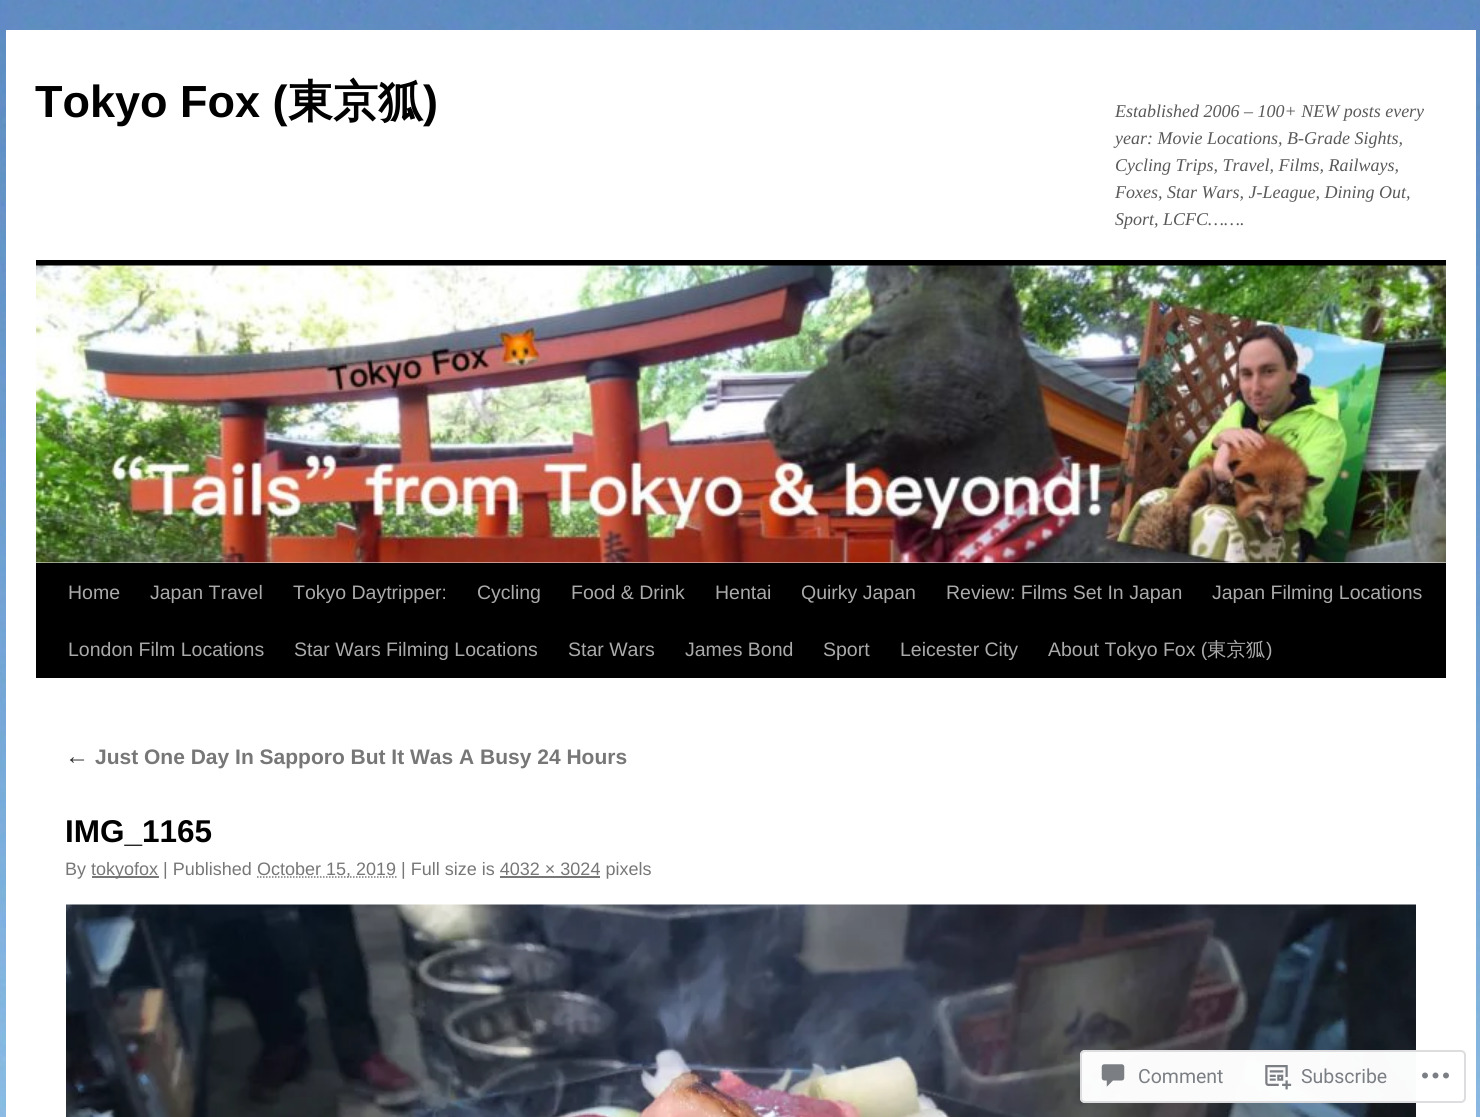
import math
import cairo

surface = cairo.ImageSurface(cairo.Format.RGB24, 1480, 1117)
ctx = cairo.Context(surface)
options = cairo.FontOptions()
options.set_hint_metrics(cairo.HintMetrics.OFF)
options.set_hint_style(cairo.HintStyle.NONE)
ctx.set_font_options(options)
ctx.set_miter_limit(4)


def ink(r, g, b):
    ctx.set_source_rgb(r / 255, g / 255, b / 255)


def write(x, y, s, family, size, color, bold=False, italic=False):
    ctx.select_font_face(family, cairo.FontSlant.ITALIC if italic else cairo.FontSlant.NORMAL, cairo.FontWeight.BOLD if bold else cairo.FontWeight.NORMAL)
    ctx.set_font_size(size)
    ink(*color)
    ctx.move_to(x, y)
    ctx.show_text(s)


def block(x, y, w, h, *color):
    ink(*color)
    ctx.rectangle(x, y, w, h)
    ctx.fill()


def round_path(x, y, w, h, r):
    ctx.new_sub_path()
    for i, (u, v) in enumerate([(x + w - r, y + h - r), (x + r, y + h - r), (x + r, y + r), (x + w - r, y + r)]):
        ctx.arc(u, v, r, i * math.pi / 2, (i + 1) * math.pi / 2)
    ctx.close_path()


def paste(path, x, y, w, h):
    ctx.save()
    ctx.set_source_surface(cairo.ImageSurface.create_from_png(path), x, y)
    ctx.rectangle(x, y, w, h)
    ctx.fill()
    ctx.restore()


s1 = dict(family="Liberation Sans", size=45, color=(0, 0, 0), bold=True)
s2 = dict(family="WenQuanYi Zen Hei", size=45, color=(0, 0, 0), bold=True)
s3 = dict(family="Liberation Serif", size=18, color=(89, 89, 89), italic=True)
s4 = dict(family="Liberation Sans", size=19.5, color=(170, 170, 170))
s5 = dict(family="WenQuanYi Zen Hei Medium", size=19.5, color=(170, 170, 170))
s6 = dict(family="Liberation Serif", size=24, color=(51, 51, 51), italic=True)
s7 = dict(family="Liberation Sans", size=21, color=(119, 119, 119), bold=True)
s8 = dict(family="Liberation Sans", size=31.5, color=(0, 0, 0), bold=True)
s9 = dict(family="Liberation Sans", size=18, color=(119, 119, 119))
s10 = dict(family="Roboto", size=19.5, color=(123, 127, 132))

ink(255, 255, 255)
ctx.paint()
paste("pic1.png", 0, 0, 1480, 1117)
block(6, 30, 1470, 1087, 255, 255, 255)
write(35, 117, "Tokyo Fox (", **s1)
write(288, 117, "東京狐", **s2)
write(423, 117, ")", **s1)
write(1115, 117, "Established 2006 – 100+ NEW posts every", **s3)
write(1115, 144, "year: Movie Locations, B-Grade Sights,", **s3)
write(1115, 171, "Cycling Trips, Travel, Films, Railways,", **s3)
write(1115, 198, "Foxes, Star Wars, J-League, Dining Out,", **s3)
write(1115, 225, "Sport, LCFC…….", **s3)
block(36, 260, 1410, 6, 0, 0, 0)
block(36, 563, 1410, 115, 0, 0, 0)
paste("pic2.png", 36, 265, 1410, 298)
write(68, 599, "Home", **s4)
write(150, 599, "Japan Travel", **s4)
write(293, 599, "Tokyo Daytripper:", **s4)
write(477, 599, "Cycling", **s4)
write(571, 599, "Food & Drink", **s4)
write(715, 599, "Hentai", **s4)
write(801, 599, "Quirky Japan", **s4)
write(946, 599, "Review: Films Set In Japan", **s4)
write(1212, 599, "Japan Filming Locations", **s4)
write(68, 656, "London Film Locations", **s4)
write(294, 656, "Star Wars Filming Locations", **s4)
write(568, 656, "Star Wars", **s4)
write(685, 656, "James Bond", **s4)
write(823, 656, "Sport", **s4)
write(900, 656, "Leicester City", **s4)
write(1048, 656, "About Tokyo Fox (", **s4)
write(1207, 656, "東京狐", **s5)
write(1266, 656, ")", **s4)
write(65, 764, "←", **s6)
write(95, 764, "Just One Day In Sapporo But It Was A Busy 24 Hours", **s7)
write(65, 842, "IMG_1165", **s8)
write(65, 875, "By", **s9)
block(92, 876, 67, 2, 119, 119, 119)
write(91, 875, "tokyofox | Published", **s9)
ctx.new_path()
ctx.move_to(257, 877)
ctx.line_to(396.5, 877)
ctx.set_line_width(1.5)
ctx.set_dash([1.5, 1.5])
ctx.stroke()
write(257, 875, "October 15, 2019 | Full size is 4032 × 3024 pixels", **s9)
block(500, 876, 100, 2, 119, 119, 119)
paste("pic3.png", 66, 904, 1350, 213)
ctx.set_source_rgba(1, 1, 1, 0.98)
round_path(1080, 1050, 386, 53, 5)
ctx.fill()
round_path(1081, 1051, 384, 51, 4)
ctx.set_source_rgba(0.863, 0.863, 0.871, 0.98)
ctx.set_line_width(2)
ctx.set_dash([])
ctx.stroke()
paste("pic4.png", 1101, 1064, 24, 23)
write(1138, 1083, "Comment", **s10)
paste("pic5.png", 1265, 1065, 27, 25)
write(1301, 1083, "Subscribe", **s10)
paste("pic6.png", 1422, 1072, 27, 7)
surface.write_to_png("screenshot.png")
